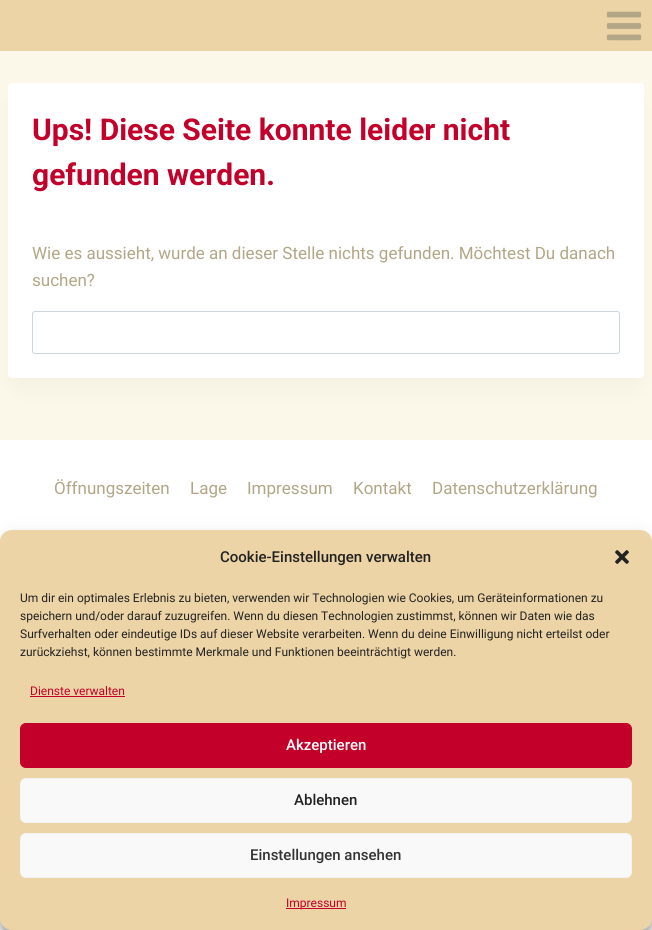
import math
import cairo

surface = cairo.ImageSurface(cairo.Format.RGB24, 652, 930)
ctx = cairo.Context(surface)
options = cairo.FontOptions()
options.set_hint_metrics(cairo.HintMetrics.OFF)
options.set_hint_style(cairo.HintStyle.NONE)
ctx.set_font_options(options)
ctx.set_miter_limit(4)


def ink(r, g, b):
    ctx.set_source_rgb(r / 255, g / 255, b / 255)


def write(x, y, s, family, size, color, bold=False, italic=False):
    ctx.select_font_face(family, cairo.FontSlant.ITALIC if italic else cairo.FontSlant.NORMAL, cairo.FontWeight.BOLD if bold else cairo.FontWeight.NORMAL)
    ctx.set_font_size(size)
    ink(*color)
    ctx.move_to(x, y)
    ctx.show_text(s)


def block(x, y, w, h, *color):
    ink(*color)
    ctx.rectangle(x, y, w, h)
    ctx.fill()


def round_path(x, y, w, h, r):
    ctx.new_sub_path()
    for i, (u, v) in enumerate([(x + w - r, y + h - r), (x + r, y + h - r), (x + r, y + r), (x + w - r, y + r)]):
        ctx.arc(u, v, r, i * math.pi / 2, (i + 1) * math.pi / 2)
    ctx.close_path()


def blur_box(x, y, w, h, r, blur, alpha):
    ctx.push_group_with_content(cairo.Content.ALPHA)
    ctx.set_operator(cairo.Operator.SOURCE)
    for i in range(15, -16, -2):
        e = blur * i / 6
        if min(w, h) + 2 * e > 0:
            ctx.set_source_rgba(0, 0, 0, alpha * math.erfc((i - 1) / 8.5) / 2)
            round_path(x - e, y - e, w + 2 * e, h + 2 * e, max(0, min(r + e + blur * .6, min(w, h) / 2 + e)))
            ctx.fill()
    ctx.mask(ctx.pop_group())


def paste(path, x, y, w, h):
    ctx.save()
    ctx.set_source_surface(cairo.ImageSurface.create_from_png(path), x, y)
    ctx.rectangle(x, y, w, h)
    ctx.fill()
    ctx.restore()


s1 = dict(family="Roboto", size=30, color=(195, 0, 42), bold=True)
s2 = dict(family="Roboto", size=17, color=(178, 166, 134))
s3 = dict(family="Roboto Medium", size=15, color=(34, 34, 34))
s4 = dict(family="Roboto", size=12, color=(34, 34, 34))
s5 = dict(family="Roboto", size=12, color=(195, 0, 42))
s6 = dict(family="Roboto Medium", size=15, color=(255, 255, 255))
s7 = dict(family="Roboto Medium", size=15, color=(51, 51, 51))

ink(252, 248, 233)
ctx.paint()
block(0, 0, 652, 51, 237, 212, 166)
paste("pic1.png", 606, 11, 36, 30)
ink(0, 0, 0)
blur_box(18, 108, 616, 275, 0, 12.5, 0.05)
ink(255, 255, 255)
round_path(8, 83, 636, 295, 4)
ctx.fill()
write(32, 140, "Ups! Diese Seite konnte leider nicht", **s1)
write(32, 185, "gefunden werden.", **s1)
write(32, 259, "Wie es aussieht, wurde an dieser Stelle nichts gefunden. Möchtest Du danach", **s2)
write(32, 286, "suchen?", **s2)
round_path(32.5, 311.5, 587, 42, 2.5)
ink(203, 213, 224)
ctx.set_line_width(1)
ctx.stroke()
block(0, 440, 652, 490, 255, 255, 255)
write(54, 494, "Öffnungszeiten", **s2)
write(190, 494, "Lage", **s2)
write(247, 494, "Impressum", **s2)
write(353, 494, "Kontakt", **s2)
write(432, 494, "Datenschutzerklärung", **s2)
ink(0, 0, 0)
blur_box(0, 536, 652, 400, 12, 3, 0.23)
blur_box(0, 540, 652, 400, 12, 10, 0.19)
ink(237, 212, 166)
round_path(0, 530, 652, 400, 12)
ctx.fill()
write(220, 562, "Cookie-Einstellungen verwalten", **s3)
paste("pic2.png", 615, 550, 14, 14)
write(20, 602, "Um dir ein optimales Erlebnis zu bieten, verwenden wir Technologien wie Cookies, um Geräteinformationen zu", **s4)
write(20, 620, "speichern und/oder darauf zuzugreifen. Wenn du diesen Technologien zustimmst, können wir Daten wie das", **s4)
write(20, 638, "Surfverhalten oder eindeutige IDs auf dieser Website verarbeiten. Wenn du deine Einwilligung nicht erteilst oder", **s4)
write(20, 656, "zurückziehst, können bestimmte Merkmale und Funktionen beeinträchtigt werden.", **s4)
write(30, 695, "Dienste verwalten", **s5)
block(30, 696, 95, 1, 195, 0, 42)
round_path(20.5, 723.5, 611, 44, 5.5)
ctx.fill_preserve()
ctx.stroke()
write(286, 750, "Akzeptieren", **s6)
ink(249, 249, 249)
round_path(20.5, 778.5, 611, 44, 5.5)
ctx.fill_preserve()
ink(242, 242, 242)
ctx.stroke()
write(294, 805, "Ablehnen", **s3)
ink(249, 249, 249)
round_path(20.5, 833.5, 611, 44, 5.5)
ctx.fill_preserve()
ink(242, 242, 242)
ctx.stroke()
write(250, 860, "Einstellungen ansehen", **s7)
block(286, 908, 60, 1, 195, 0, 42)
write(286, 907, "Impressum", **s5)
surface.write_to_png("screenshot.png")
